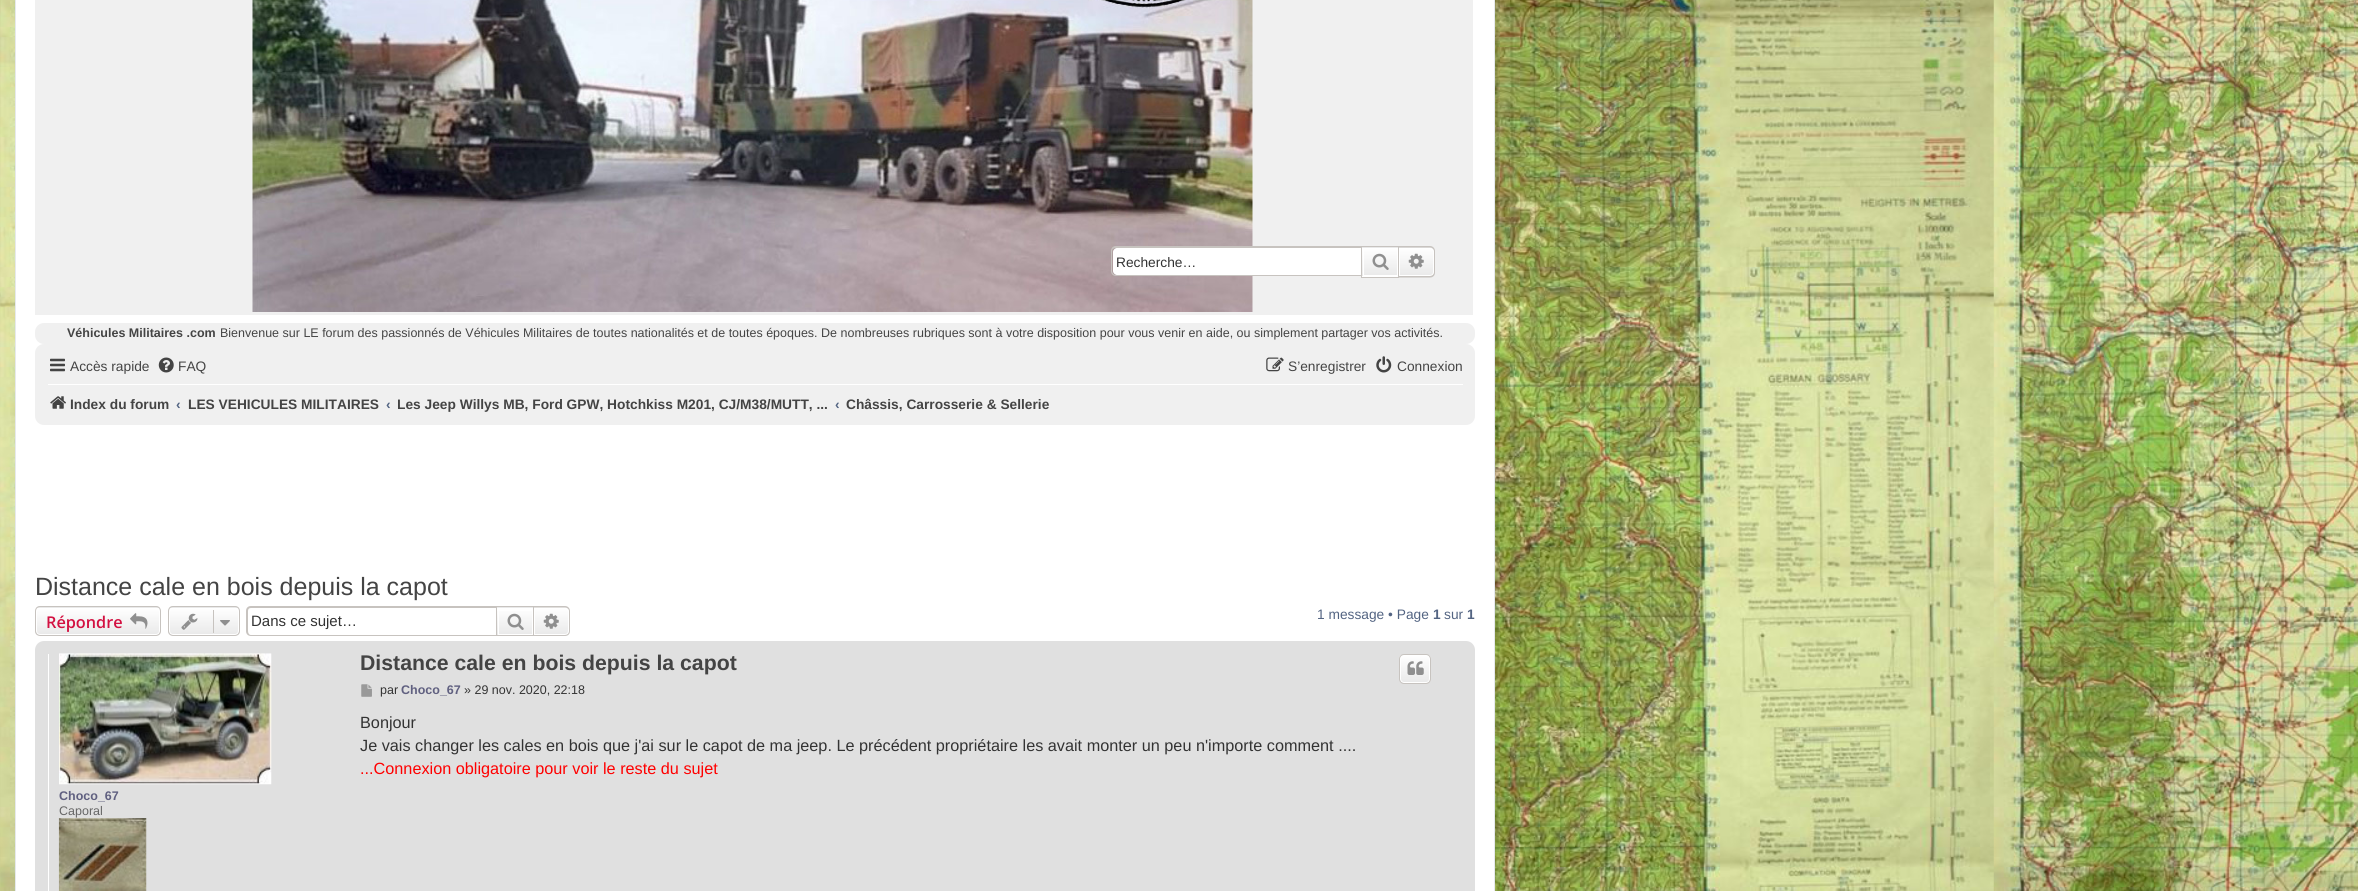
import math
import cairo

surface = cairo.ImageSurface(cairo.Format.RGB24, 2358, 891)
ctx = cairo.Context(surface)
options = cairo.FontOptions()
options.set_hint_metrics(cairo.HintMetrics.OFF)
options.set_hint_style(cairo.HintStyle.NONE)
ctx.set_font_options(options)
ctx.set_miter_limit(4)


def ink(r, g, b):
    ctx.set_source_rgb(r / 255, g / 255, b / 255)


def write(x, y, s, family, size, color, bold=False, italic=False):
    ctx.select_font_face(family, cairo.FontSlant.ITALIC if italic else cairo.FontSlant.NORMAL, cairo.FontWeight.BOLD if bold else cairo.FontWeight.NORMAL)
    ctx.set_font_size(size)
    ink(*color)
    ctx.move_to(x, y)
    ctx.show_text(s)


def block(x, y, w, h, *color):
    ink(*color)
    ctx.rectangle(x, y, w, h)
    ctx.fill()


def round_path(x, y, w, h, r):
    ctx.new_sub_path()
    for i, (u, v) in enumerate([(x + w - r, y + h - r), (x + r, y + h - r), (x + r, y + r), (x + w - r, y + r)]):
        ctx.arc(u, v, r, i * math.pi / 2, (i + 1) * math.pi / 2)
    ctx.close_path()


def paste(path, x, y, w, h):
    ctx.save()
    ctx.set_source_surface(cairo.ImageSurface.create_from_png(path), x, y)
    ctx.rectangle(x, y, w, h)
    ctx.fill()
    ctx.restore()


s1 = dict(family="Liberation Sans", size=13.75, color=(51, 51, 51))
s2 = dict(family="Liberation Sans", size=12.5, color=(68, 68, 68), bold=True)
s3 = dict(family="Liberation Sans", size=12.5, color=(68, 68, 68))
s4 = dict(family="Liberation Sans", size=13.75, color=(68, 68, 68))
s5 = dict(family="Liberation Sans", size=13.75, color=(68, 68, 68), bold=True)
s6 = dict(family="Liberation Sans", size=13.75, color=(83, 100, 130), bold=True)
s7 = dict(family="Liberation Sans", size=25, color=(68, 68, 68))
s8 = dict(family="Open Sans SemiBold", size=16.25, color=(211, 17, 65))
s9 = dict(family="Liberation Sans", size=15, color=(51, 51, 51))
s10 = dict(family="Liberation Sans", size=13.75, color=(83, 100, 130))
s11 = dict(family="Liberation Sans", size=21.25, color=(68, 68, 68), bold=True)
s12 = dict(family="Liberation Sans", size=12.5, color=(51, 51, 51))
s13 = dict(family="Liberation Sans", size=12.5, color=(96, 96, 128), bold=True)
s14 = dict(family="Liberation Sans", size=16.25, color=(51, 51, 51))
s15 = dict(family="Liberation Sans", size=16.25, color=(255, 0, 0))
s16 = dict(family="Liberation Sans", size=12.5, color=(102, 102, 102))

ink(255, 255, 255)
ctx.paint()
paste("pic1.png", 0, 0, 2358, 891)
ink(255, 255, 255)
ctx.rectangle(15.5, -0.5, 1479, 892)
ctx.fill_preserve()
ink(230, 233, 237)
ctx.set_line_width(1)
ctx.stroke()
block(35, 0, 1438, 315, 240, 240, 240)
paste("pic2.png", 252, 0, 1001, 312)
ink(255, 255, 255)
ctx.new_path()
ctx.move_to(1117, 248)
ctx.line_to(1361, 248)
ctx.line_to(1361, 275)
ctx.line_to(1117, 275)
ctx.curve_to(1115, 275, 1113, 273, 1113, 271)
ctx.line_to(1113, 252)
ctx.curve_to(1113, 250, 1115, 248, 1117, 248)
ctx.close_path()
ctx.fill()
ink(199, 195, 191)
ctx.set_fill_rule(cairo.FillRule.EVEN_ODD)
ctx.new_path()
ctx.move_to(1116, 246)
ctx.line_to(1361, 246)
ctx.line_to(1361, 276)
ctx.line_to(1116, 276)
ctx.curve_to(1113, 276, 1111, 274, 1111, 271)
ctx.line_to(1111, 251)
ctx.curve_to(1111, 248, 1113, 246, 1116, 246)
ctx.close_path()
ctx.move_to(1116, 248)
ctx.line_to(1361, 248)
ctx.line_to(1361, 275)
ctx.line_to(1116, 275)
ctx.curve_to(1114, 275, 1112, 273, 1112, 271)
ctx.line_to(1112, 251)
ctx.curve_to(1112, 249, 1114, 248, 1116, 248)
ctx.close_path()
ctx.fill()
write(1116, 267, "Recherche…", **s1)
block(1362, 247, 36, 1, 233, 233, 233)
gradient = cairo.LinearGradient(1380, 248, 1380, 276)
gradient.add_color_stop_rgba(0, 1, 1, 1, 1)
gradient.add_color_stop_rgba(1, 0.914, 0.914, 0.914, 1)
ctx.set_source(gradient)
ctx.rectangle(1362, 248, 35, 28)
ctx.fill()
gradient = cairo.LinearGradient(1380, 276, 1380, 305)
gradient.add_color_stop_rgba(0, 1, 1, 1, 1)
gradient.add_color_stop_rgba(1, 0.914, 0.914, 0.914, 1)
ctx.set_source(gradient)
ctx.rectangle(1361, 276, 38, 1)
ctx.fill()
ctx.rectangle(1363.5, 248.5, 34, 27)
ink(255, 255, 255)
ctx.stroke()
ctx.rectangle(1361.5, 246.5, 37, 31)
ink(199, 195, 191)
ctx.stroke()
paste("pic3.png", 1372, 253, 17, 17)
gradient = cairo.LinearGradient(1416, 248, 1416, 276)
gradient.add_color_stop_rgba(0, 1, 1, 1, 1)
gradient.add_color_stop_rgba(1, 0.914, 0.914, 0.914, 1)
ctx.set_source(gradient)
ctx.new_path()
ctx.move_to(1399.5, 248.5)
ctx.line_to(1430, 248.5)
ctx.curve_to(1432, 248.5, 1433.5, 250, 1433.5, 252)
ctx.line_to(1433.5, 272)
ctx.curve_to(1433.5, 274, 1432, 275.5, 1430, 275.5)
ctx.line_to(1399.5, 275.5)
ctx.close_path()
ctx.fill_preserve()
ink(255, 255, 255)
ctx.stroke()
ink(199, 195, 191)
ctx.new_path()
ctx.move_to(1399, 246)
ctx.line_to(1430, 246)
ctx.curve_to(1433, 246, 1435, 248.5, 1435, 251)
ctx.line_to(1435, 272.5)
ctx.curve_to(1435, 275.5, 1433, 277.5, 1430, 277.5)
ctx.line_to(1399, 277.5)
ctx.close_path()
ctx.move_to(1399, 247.5)
ctx.line_to(1430, 247.5)
ctx.curve_to(1432, 247.5, 1434, 249, 1434, 251)
ctx.line_to(1434, 272.5)
ctx.curve_to(1434, 274.5, 1432, 276, 1430, 276)
ctx.line_to(1399, 276)
ctx.close_path()
ctx.fill()
paste("pic4.png", 1408, 253, 16, 16)
ink(240, 240, 240)
round_path(35, 323, 1440, 21, 9)
ctx.fill()
write(67, 337, "Véhicules Militaires .com", **s2)
write(220, 337, "Bienvenue sur LE forum des passionnés de Véhicules Militaires de toutes nationalités et de toutes époques. De nombreuses rubriques sont à votre disposition pour vous venir en aide, ou simplement partager vos activités.", **s3)
ink(240, 240, 240)
round_path(35, 344, 1440, 81, 9)
ctx.fill()
paste("pic5.png", 50, 358, 15, 14)
write(70, 371, "Accès rapide", **s4)
paste("pic6.png", 158, 357, 16, 16)
write(178, 371, "FAQ", **s4)
paste("pic7.png", 1266, 357, 18, 15)
write(1288, 371, "S’enregistrer", **s4)
paste("pic8.png", 1376, 356, 16, 17)
write(1397, 371, "Connexion", **s4)
block(48, 384, 1415, 1, 255, 255, 255)
paste("pic9.png", 50, 396, 16, 13)
write(70, 409, "Index du forum", **s5)
write(176, 409, "‹", **s6)
write(188, 409, "LES VEHICULES MILITAIRES", **s5)
write(386, 409, "‹", **s6)
ctx.save()
ctx.set_fill_rule(cairo.FillRule.WINDING)
ctx.rectangle(398, 389, 430, 30)
ctx.clip()
write(397, 409, "Les Jeep Willys MB, Ford GPW, Hotchkiss M201, CJ/M38/MUTT, ...", **s5)
ctx.restore()
write(835, 409, "‹", **s6)
write(846, 409, "Châssis, Carrosserie & Sellerie", **s5)
write(35, 595, "Distance cale en bois depuis la capot", **s7)
ctx.save()
ctx.set_fill_rule(cairo.FillRule.WINDING)
round_path(35, 606, 126, 30, 5)
ctx.clip()
gradient = cairo.LinearGradient(98, 580, 98, 608)
gradient.add_color_stop_rgba(0, 1, 1, 1, 1)
gradient.add_color_stop_rgba(1, 0.914, 0.914, 0.914, 1)
ctx.set_source(gradient)
ctx.rectangle(35, 606, 126, 2)
ctx.fill()
gradient = cairo.LinearGradient(98, 608, 98, 635)
gradient.add_color_stop_rgba(0, 1, 1, 1, 1)
gradient.add_color_stop_rgba(1, 0.914, 0.914, 0.914, 1)
ctx.set_source(gradient)
ctx.rectangle(35, 608, 126, 27)
ctx.fill()
ctx.restore()
round_path(36.5, 608.5, 123, 26, 3.5)
ink(255, 255, 255)
ctx.stroke()
round_path(35.5, 606.5, 125, 29, 4.5)
ink(199, 195, 191)
ctx.stroke()
write(46, 628, "Répondre", **s8)
paste("pic10.png", 130, 613, 18, 16)
ctx.save()
ctx.set_fill_rule(cairo.FillRule.WINDING)
round_path(168, 606, 72, 30, 5)
ctx.clip()
gradient = cairo.LinearGradient(204, 580, 204, 608)
gradient.add_color_stop_rgba(0, 1, 1, 1, 1)
gradient.add_color_stop_rgba(1, 0.914, 0.914, 0.914, 1)
ctx.set_source(gradient)
ctx.rectangle(168, 606, 72, 2)
ctx.fill()
gradient = cairo.LinearGradient(204, 608, 204, 635)
gradient.add_color_stop_rgba(0, 1, 1, 1, 1)
gradient.add_color_stop_rgba(1, 0.914, 0.914, 0.914, 1)
ctx.set_source(gradient)
ctx.rectangle(168, 608, 72, 27)
ctx.fill()
ctx.restore()
round_path(169.5, 608.5, 69, 26, 3.5)
ink(255, 255, 255)
ctx.stroke()
round_path(168.5, 606.5, 71, 29, 4.5)
ink(199, 195, 191)
ctx.stroke()
paste("pic11.png", 181, 613, 17, 17)
block(213, 610, 1, 23, 199, 195, 191)
paste("pic12.png", 220, 620, 10, 6)
ctx.new_path()
ctx.move_to(251, 606)
ctx.line_to(496, 606)
ctx.line_to(496, 636)
ctx.line_to(251, 636)
ctx.curve_to(248, 636, 246, 634, 246, 631)
ctx.line_to(246, 611)
ctx.curve_to(246, 608, 248, 606, 251, 606)
ctx.close_path()
ctx.move_to(251, 608)
ctx.line_to(496, 608)
ctx.line_to(496, 635)
ctx.line_to(251, 635)
ctx.curve_to(249, 635, 248, 633, 248, 631)
ctx.line_to(248, 611)
ctx.curve_to(248, 609, 249, 608, 251, 608)
ctx.close_path()
ctx.fill()
write(251, 626, "Dans ce sujet…", **s9)
block(497, 607, 36, 1, 233, 233, 233)
gradient = cairo.LinearGradient(515, 608, 515, 635)
gradient.add_color_stop_rgba(0, 1, 1, 1, 1)
gradient.add_color_stop_rgba(1, 0.914, 0.914, 0.914, 1)
ctx.set_source(gradient)
ctx.rectangle(497, 611, 35, 24)
ctx.fill()
ctx.rectangle(498.5, 608.5, 34, 26)
ink(255, 255, 255)
ctx.stroke()
ctx.rectangle(496.5, 606.5, 37, 29)
ink(199, 195, 191)
ctx.stroke()
paste("pic13.png", 507, 613, 17, 17)
gradient = cairo.LinearGradient(551, 608, 551, 635)
gradient.add_color_stop_rgba(0, 1, 1, 1, 1)
gradient.add_color_stop_rgba(1, 0.914, 0.914, 0.914, 1)
ctx.set_source(gradient)
ctx.new_path()
ctx.move_to(534.5, 608.5)
ctx.line_to(565, 608.5)
ctx.curve_to(567, 608.5, 568.5, 610, 568.5, 612)
ctx.line_to(568.5, 631)
ctx.curve_to(568.5, 633, 567, 634.5, 565, 634.5)
ctx.line_to(534.5, 634.5)
ctx.close_path()
ctx.fill_preserve()
ink(255, 255, 255)
ctx.stroke()
ink(199, 195, 191)
ctx.new_path()
ctx.move_to(534, 606)
ctx.line_to(565, 606)
ctx.curve_to(568, 606, 570, 608.5, 570, 611)
ctx.line_to(570, 631)
ctx.curve_to(570, 634, 568, 636, 565, 636)
ctx.line_to(534, 636)
ctx.close_path()
ctx.move_to(534, 607.5)
ctx.line_to(565, 607.5)
ctx.curve_to(567, 607.5, 569, 609, 569, 611)
ctx.line_to(569, 631)
ctx.curve_to(569, 633.5, 567, 635, 565, 635)
ctx.line_to(534, 635)
ctx.close_path()
ctx.fill()
paste("pic14.png", 543, 613, 16, 16)
write(1317, 619, "1 message • Page", **s10)
write(1433, 619, "1", **s6)
write(1444, 619, "sur", **s10)
write(1467, 619, "1", **s6)
ink(224, 224, 224)
round_path(35, 641, 1440, 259, 9)
ctx.fill()
write(360, 670, "Distance cale en bois depuis la capot", **s11)
ctx.save()
ctx.set_fill_rule(cairo.FillRule.WINDING)
round_path(1399, 654, 32, 30, 5)
ctx.clip()
gradient = cairo.LinearGradient(1415, 655, 1415, 683)
gradient.add_color_stop_rgba(0, 1, 1, 1, 1)
gradient.add_color_stop_rgba(1, 0.914, 0.914, 0.914, 1)
ctx.set_source(gradient)
ctx.rectangle(1399, 655, 32, 28)
ctx.fill()
ctx.restore()
round_path(1400.5, 655.5, 29, 27, 3.5)
ink(255, 255, 255)
ctx.stroke()
round_path(1399.5, 654.5, 31, 29, 4.5)
ink(199, 195, 191)
ctx.stroke()
paste("pic15.png", 1407, 661, 17, 14)
paste("pic16.png", 361, 684, 11, 13)
write(380, 694, "par", **s12)
write(401, 694, "Choco_67", **s13)
write(464, 694, "» 29 nov. 2020, 22:18", **s12)
write(360, 728, "Bonjour", **s14)
write(360, 751, "Je vais changer les cales en bois que j'ai sur le capot de ma jeep. Le précédent propriétaire les avait monter un peu n'importe comment ....", **s14)
write(360, 774, "...Connexion obligatoire pour voir le reste du sujet", **s15)
block(48, 654, 1, 237, 255, 255, 255)
paste("pic17.png", 59, 653, 213, 132)
write(59, 800, "Choco_67", **s13)
write(59, 815, "Caporal", **s16)
paste("pic18.png", 58, 818, 89, 73)
surface.write_to_png("screenshot.png")
